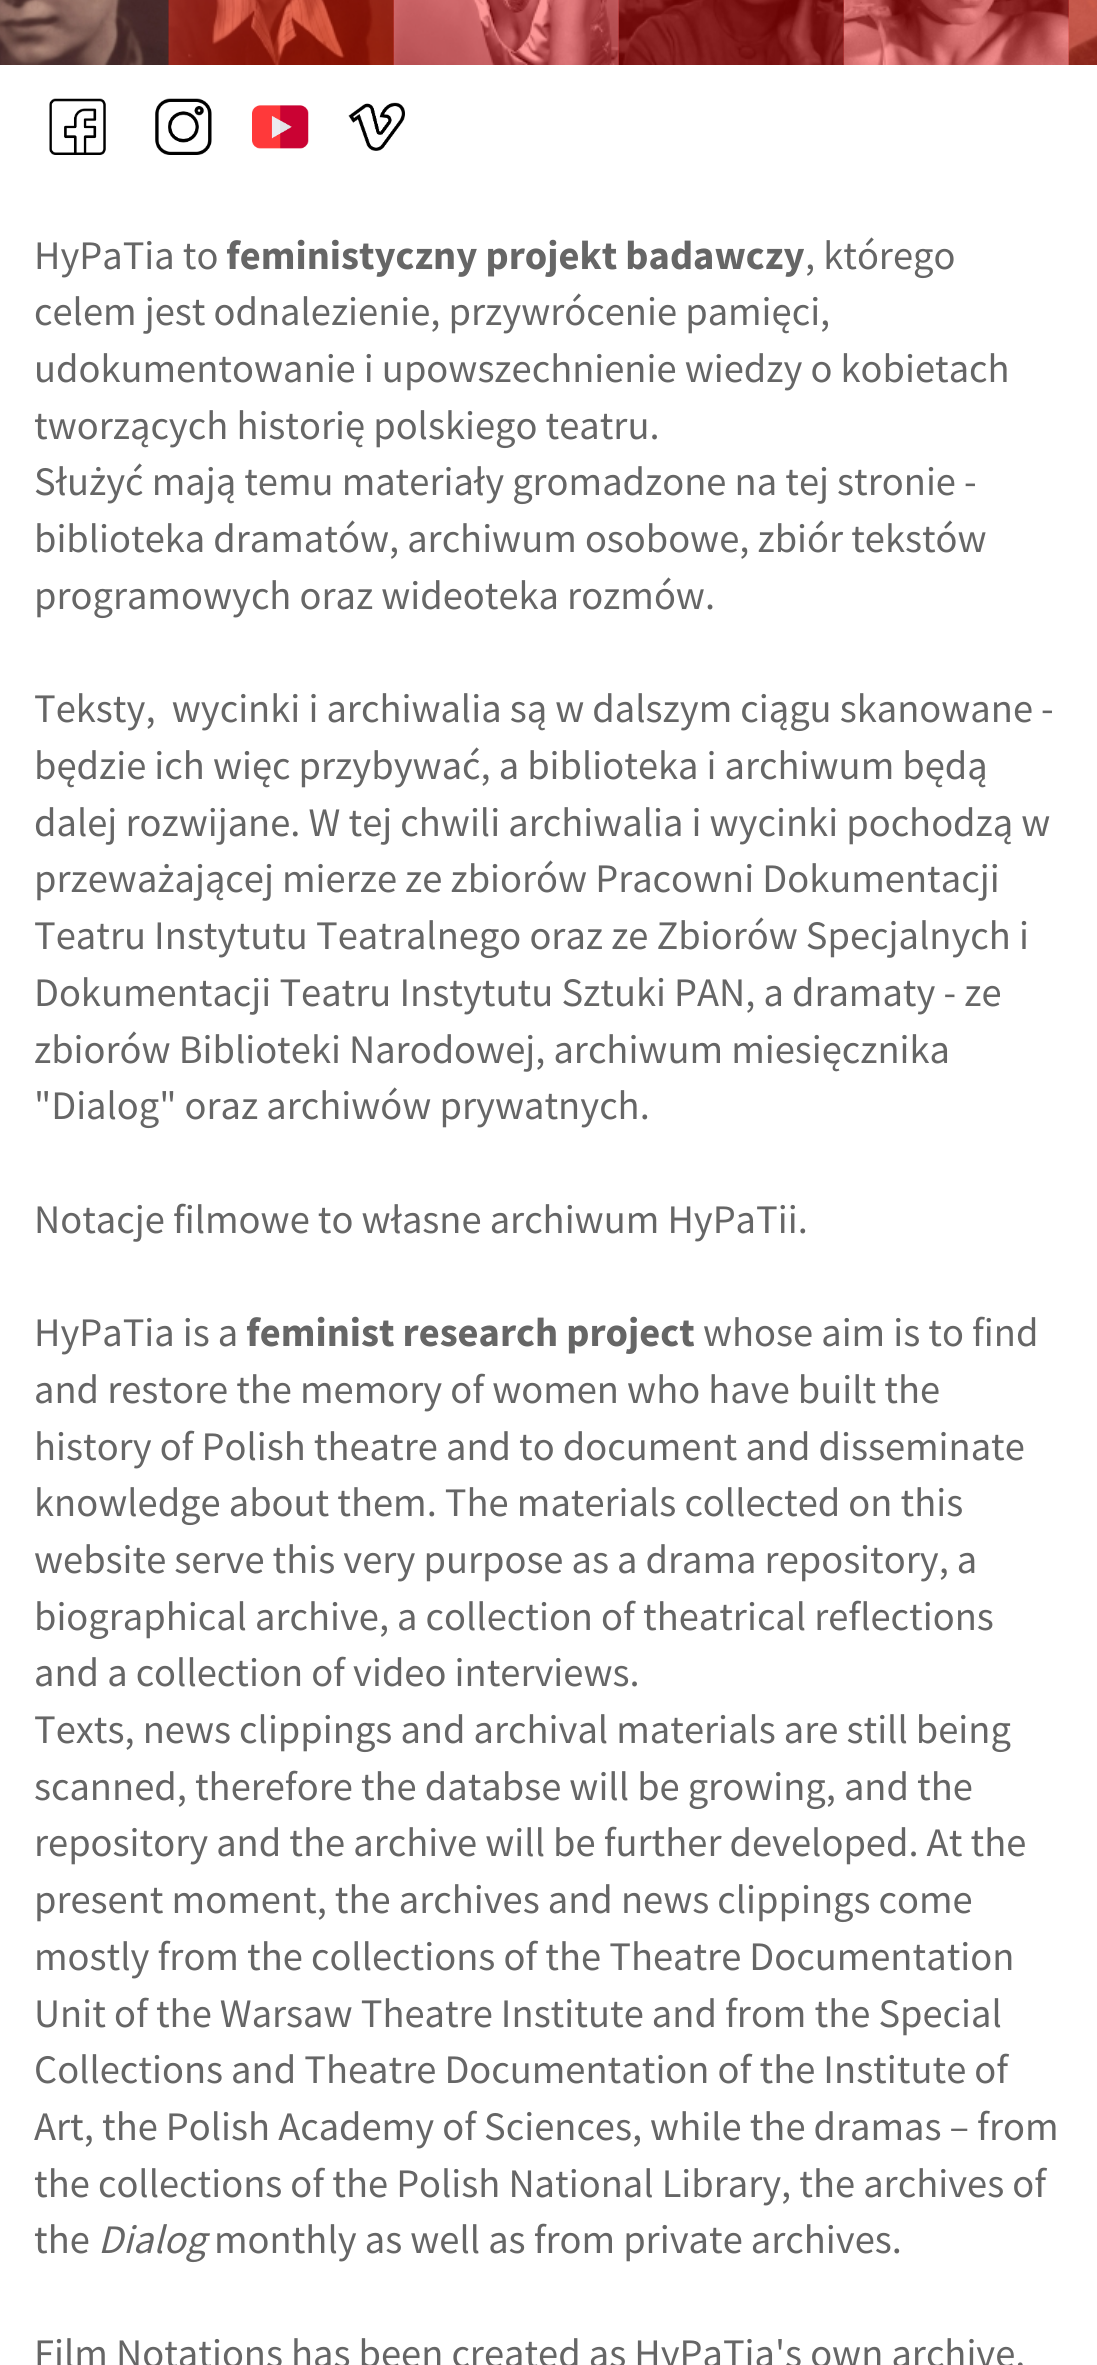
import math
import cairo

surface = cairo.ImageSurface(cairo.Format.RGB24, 1097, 2365)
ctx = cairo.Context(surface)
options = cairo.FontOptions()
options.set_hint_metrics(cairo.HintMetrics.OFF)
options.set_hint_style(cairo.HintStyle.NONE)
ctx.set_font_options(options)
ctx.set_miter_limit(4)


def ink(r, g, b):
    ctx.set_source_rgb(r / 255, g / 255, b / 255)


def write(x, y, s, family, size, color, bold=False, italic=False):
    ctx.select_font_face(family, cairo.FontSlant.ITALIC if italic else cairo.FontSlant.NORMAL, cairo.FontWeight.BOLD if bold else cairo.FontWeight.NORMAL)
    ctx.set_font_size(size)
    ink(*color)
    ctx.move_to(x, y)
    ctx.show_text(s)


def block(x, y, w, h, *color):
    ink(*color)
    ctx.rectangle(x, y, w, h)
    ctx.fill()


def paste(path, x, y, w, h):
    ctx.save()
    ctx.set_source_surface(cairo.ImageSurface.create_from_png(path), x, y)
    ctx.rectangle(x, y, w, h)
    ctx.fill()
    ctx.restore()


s1 = dict(family="Source Sans Pro", size=40.5, color=(102, 102, 102))
s2 = dict(family="Source Sans Pro", size=40.5, color=(102, 102, 102), bold=True)
s3 = dict(family="Source Sans Pro", size=40.5, color=(102, 102, 102), italic=True)

ink(255, 255, 255)
ctx.paint()
block(0, 0, 1097, 65, 255, 0, 0)
paste("pic1.png", 0, 0, 169, 65)
paste("pic2.png", 168, 0, 226, 65)
paste("pic3.png", 393, 0, 226, 65)
paste("pic4.png", 618, 0, 226, 65)
paste("pic5.png", 843, 0, 226, 65)
paste("pic6.png", 1068, 0, 29, 65)
paste("pic7.png", 49, 98, 57, 57)
paste("pic8.png", 155, 98, 57, 57)
paste("pic9.png", 252, 105, 57, 44)
paste("pic10.png", 348, 102, 57, 49)
write(34, 269, "HyPaTia to", **s1)
write(226, 269, "feministyczny projekt badawczy", **s2)
write(805, 269, ", którego", **s1)
write(34, 325, "celem jest odnalezienie, przywrócenie pamięci,", **s1)
write(34, 382, "udokumentowanie i upowszechnienie wiedzy o kobietach", **s1)
write(34, 439, "tworzących historię polskiego teatru.", **s1)
write(34, 495, "Służyć mają temu materiały gromadzone na tej stronie -", **s1)
write(34, 552, "biblioteka dramatów, archiwum osobowe, zbiór tekstów", **s1)
write(34, 609, "programowych oraz wideoteka rozmów.", **s1)
write(34, 722, "Teksty,  wycinki i archiwalia są w dalszym ciągu skanowane -", **s1)
write(34, 779, "będzie ich więc przybywać, a biblioteka i archiwum będą", **s1)
write(34, 836, "dalej rozwijane. W tej chwili archiwalia i wycinki pochodzą w", **s1)
write(34, 892, "przeważającej mierze ze zbiorów Pracowni Dokumentacji", **s1)
write(34, 949, "Teatru Instytutu Teatralnego oraz ze Zbiorów Specjalnych i", **s1)
write(34, 1006, "Dokumentacji Teatru Instytutu Sztuki PAN, a dramaty - ze", **s1)
write(34, 1063, "zbiorów Biblioteki Narodowej, archiwum miesięcznika", **s1)
write(34, 1119, "\"Dialog\" oraz archiwów prywatnych.", **s1)
write(34, 1233, "Notacje filmowe to własne archiwum HyPaTii.", **s1)
write(34, 1346, "HyPaTia is a", **s1)
write(246, 1346, "feminist research project", **s2)
write(703, 1346, "whose aim is to find", **s1)
write(34, 1403, "and restore the memory of women who have built the", **s1)
write(34, 1460, "history of Polish theatre and to document and disseminate", **s1)
write(34, 1516, "knowledge about them. The materials collected on this", **s1)
write(34, 1573, "website serve this very purpose as a drama repository, a", **s1)
write(34, 1630, "biographical archive, a collection of theatrical reflections", **s1)
write(34, 1686, "and a collection of video interviews.", **s1)
write(34, 1743, "Texts, news clippings and archival materials are still being", **s1)
write(34, 1800, "scanned, therefore the databse will be growing, and the", **s1)
write(34, 1856, "repository and the archive will be further developed. At the", **s1)
write(34, 1913, "present moment, the archives and news clippings come", **s1)
write(34, 1970, "mostly from the collections of the Theatre Documentation", **s1)
write(34, 2027, "Unit of the Warsaw Theatre Institute and from the Special", **s1)
write(34, 2083, "Collections and Theatre Documentation of the Institute of", **s1)
write(34, 2140, "Art, the Polish Academy of Sciences, while the dramas – from", **s1)
write(34, 2197, "the collections of the Polish National Library, the archives of", **s1)
write(34, 2253, "the", **s1)
write(98, 2253, "Dialog", **s3)
write(214, 2253, "monthly as well as from private archives.", **s1)
write(34, 2367, "Film Notations has been created as HyPaTia's own archive.", **s1)
surface.write_to_png("screenshot.png")
